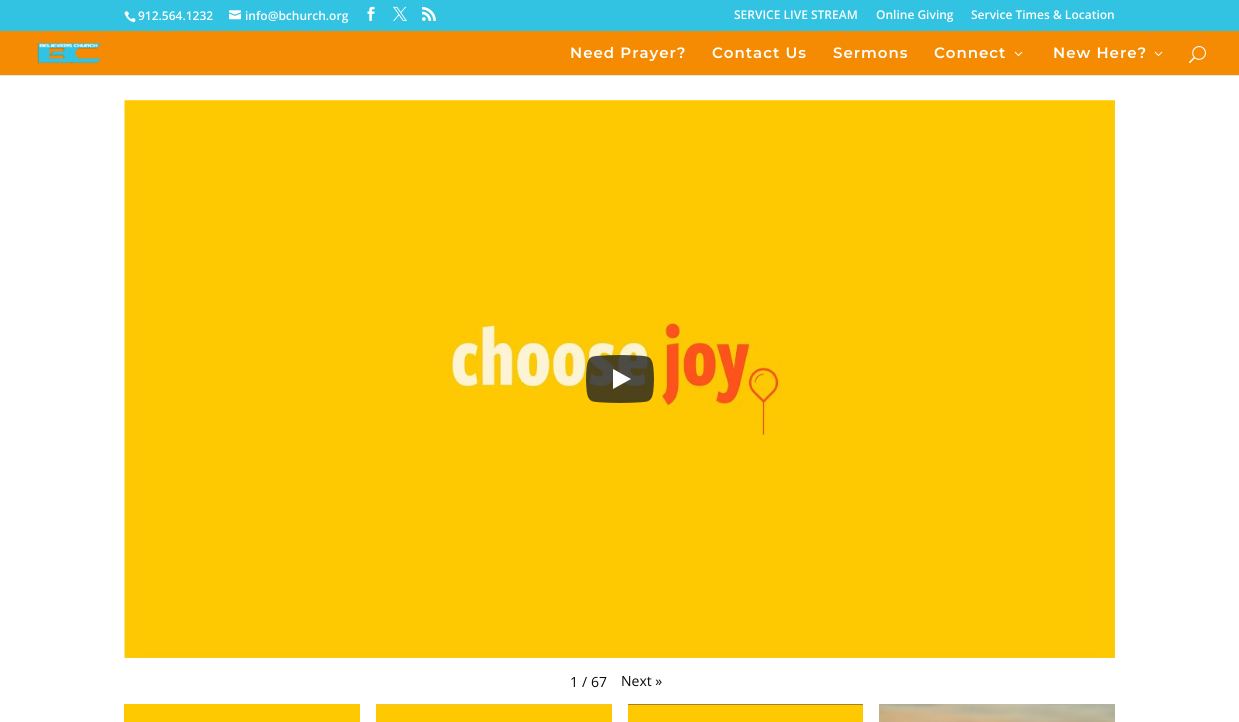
import math
import cairo

surface = cairo.ImageSurface(cairo.Format.RGB24, 1239, 722)
ctx = cairo.Context(surface)
options = cairo.FontOptions()
options.set_hint_metrics(cairo.HintMetrics.OFF)
options.set_hint_style(cairo.HintStyle.NONE)
ctx.set_font_options(options)
ctx.set_miter_limit(4)


def ink(r, g, b):
    ctx.set_source_rgb(r / 255, g / 255, b / 255)


def write(x, y, s, family, size, color, bold=False, italic=False):
    ctx.select_font_face(family, cairo.FontSlant.ITALIC if italic else cairo.FontSlant.NORMAL, cairo.FontWeight.BOLD if bold else cairo.FontWeight.NORMAL)
    ctx.set_font_size(size)
    ink(*color)
    ctx.move_to(x, y)
    ctx.show_text(s)


def write_spaced(x, y, s, letter, word):
    ctx.move_to(x, y)
    for ch in s:
        ctx.show_text(ch)
        ctx.rel_move_to(letter + word * (ch == ' '), 0)


def block(x, y, w, h, *color):
    ink(*color)
    ctx.rectangle(x, y, w, h)
    ctx.fill()


def paste(path, x, y, w, h):
    ctx.save()
    ctx.set_source_surface(cairo.ImageSurface.create_from_png(path), x, y)
    ctx.rectangle(x, y, w, h)
    ctx.fill()
    ctx.restore()


s1 = dict(family="Open Sans SemiBold", size=12, color=(255, 255, 255))
s2 = dict(family="Open Sans", size=14, color=(10, 10, 10))

ink(50, 195, 227)
ctx.paint()
paste("pic1.png", 124, 11, 12, 12)
write(138, 20, "912.564.1232", **s1)
paste("pic2.png", 229, 10, 12, 10)
write(245, 20, "info@bchurch.org", **s1)
paste("pic3.png", 367, 6, 8, 15)
paste("pic4.png", 393, 6, 14, 15)
paste("pic5.png", 422, 6, 14, 15)
write(734, 19, "SERVICE LIVE STREAM", **s1)
write(876, 19, "Online Giving", **s1)
write(971, 19, "Service Times & Location", **s1)
block(0, 75, 1239, 1, 230, 230, 230)
block(0, 31, 1239, 44, 244, 139, 2)
paste("pic6.png", 37, 42, 65, 22)
ctx.select_font_face("Montserrat Thin")
ctx.set_font_size(15)
ink(255, 255, 255)
write_spaced(570, 58, "Need Prayer?", 1, 0)
write_spaced(712, 58, "Contact Us", 1, 0)
write_spaced(833, 58, "Sermons", 1, 0)
write_spaced(934, 58, "Connect", 1, 0)
paste("pic7.png", 1014, 51, 9, 5)
write_spaced(1053, 58, "New Here?", 1, 0)
paste("pic7.png", 1154, 51, 9, 5)
paste("pic8.png", 1189, 46, 17, 18)
block(0, 76, 1239, 646, 255, 255, 255)
paste("pic9.png", 124, 100, 991, 558)
paste("pic10.png", 586, 355, 68, 48)
write(570, 687, "1", **s2)
write(582, 687, "/", **s2)
write(591, 687, "67", **s2)
write(621, 686, "Next »", **s2)
block(124, 704, 236, 18, 254, 201, 1)
paste("pic11.png", 376, 704, 236, 18)
paste("pic12.png", 628, 704, 235, 18)
paste("pic13.png", 879, 704, 236, 18)
surface.write_to_png("screenshot.png")
